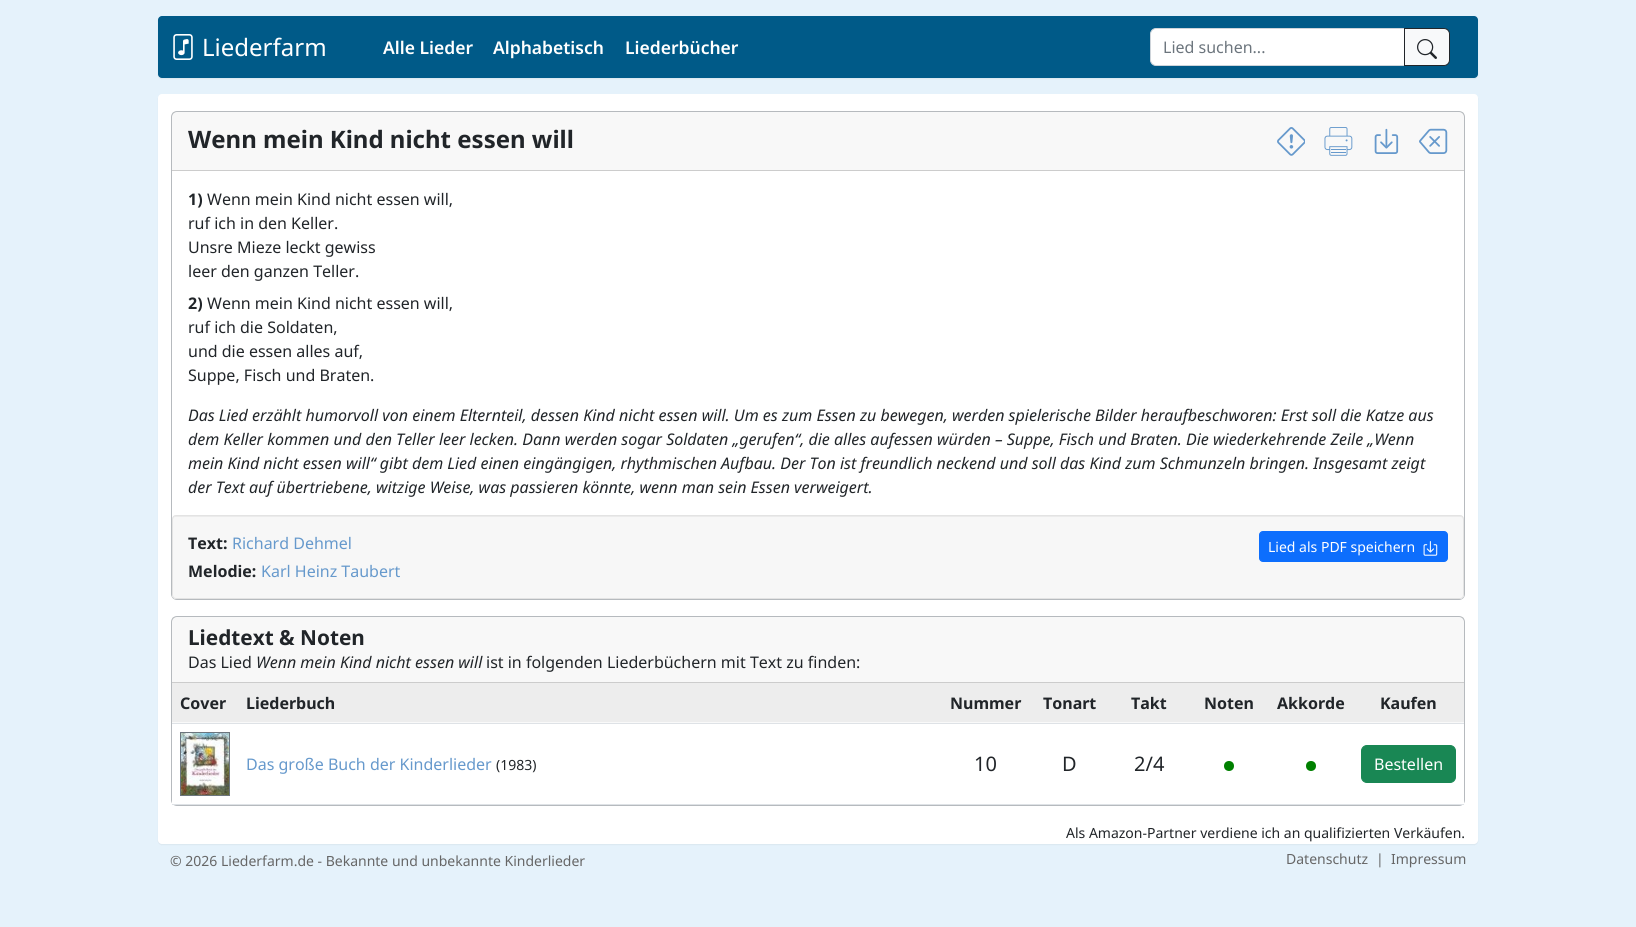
import math
import cairo

surface = cairo.ImageSurface(cairo.Format.RGB24, 1636, 927)
ctx = cairo.Context(surface)
options = cairo.FontOptions()
options.set_hint_metrics(cairo.HintMetrics.OFF)
options.set_hint_style(cairo.HintStyle.NONE)
ctx.set_font_options(options)
ctx.set_miter_limit(4)


def ink(r, g, b):
    ctx.set_source_rgb(r / 255, g / 255, b / 255)


def write(x, y, s, family, size, color, bold=False, italic=False):
    ctx.select_font_face(family, cairo.FontSlant.ITALIC if italic else cairo.FontSlant.NORMAL, cairo.FontWeight.BOLD if bold else cairo.FontWeight.NORMAL)
    ctx.set_font_size(size)
    ink(*color)
    ctx.move_to(x, y)
    ctx.show_text(s)


def block(x, y, w, h, *color):
    ink(*color)
    ctx.rectangle(x, y, w, h)
    ctx.fill()


def round_path(x, y, w, h, r):
    ctx.new_sub_path()
    for i, (u, v) in enumerate([(x + w - r, y + h - r), (x + r, y + h - r), (x + r, y + r), (x + w - r, y + r)]):
        ctx.arc(u, v, r, i * math.pi / 2, (i + 1) * math.pi / 2)
    ctx.close_path()


def blur_box(x, y, w, h, r, blur, alpha):
    ctx.push_group_with_content(cairo.Content.ALPHA)
    ctx.set_operator(cairo.Operator.SOURCE)
    for i in range(15, -16, -2):
        e = blur * i / 6
        if min(w, h) + 2 * e > 0:
            ctx.set_source_rgba(0, 0, 0, alpha * math.erfc((i - 1) / 8.5) / 2)
            round_path(x - e, y - e, w + 2 * e, h + 2 * e, max(0, min(r + e + blur * .6, min(w, h) / 2 + e)))
            ctx.fill()
    ctx.mask(ctx.pop_group())


def paste(path, x, y, w, h):
    ctx.save()
    ctx.set_source_surface(cairo.ImageSurface.create_from_png(path), x, y)
    ctx.rectangle(x, y, w, h)
    ctx.fill()
    ctx.restore()


s1 = dict(family="Noto Sans", size=24, color=(255, 255, 255))
s2 = dict(family="Noto Sans SemiBold", size=17.5, color=(255, 255, 255))
s3 = dict(family="Noto Sans", size=16, color=(108, 117, 125))
s4 = dict(family="Noto Sans", size=24, color=(33, 37, 41), bold=True)
s5 = dict(family="Noto Sans", size=16, color=(33, 37, 41), bold=True)
s6 = dict(family="Noto Sans", size=16, color=(33, 37, 41))
s7 = dict(family="Noto Sans", size=16, color=(33, 37, 41), italic=True)
s8 = dict(family="Noto Sans", size=16, color=(102, 153, 204))
s9 = dict(family="Noto Sans", size=14, color=(255, 255, 255))
s10 = dict(family="Noto Sans", size=20.75, color=(33, 37, 41), bold=True)
s11 = dict(family="Noto Sans", size=14, color=(33, 37, 41))
s12 = dict(family="Noto Sans", size=20, color=(33, 37, 41))
s13 = dict(family="Noto Sans", size=16, color=(255, 255, 255))
s14 = dict(family="Noto Sans", size=14, color=(102, 102, 102))

ink(229, 242, 251)
ctx.paint()
ink(0, 0, 0)
blur_box(158, 17, 1320, 62, 4, 0.5, 0.05)
ink(0, 90, 136)
round_path(158, 16, 1320, 62, 4)
ctx.fill()
paste("pic1.png", 173, 34, 20, 26)
write(202, 56, "Liederfarm", **s1)
write(383, 54, "Alle Lieder", **s2)
write(493, 54, "Alphabetisch", **s2)
write(625, 54, "Liederbücher", **s2)
ctx.new_path()
ctx.move_to(1156, 28.5)
ctx.line_to(1404.5, 28.5)
ctx.line_to(1404.5, 65.5)
ctx.line_to(1156, 65.5)
ctx.curve_to(1153, 65.5, 1150.5, 63, 1150.5, 60)
ctx.line_to(1150.5, 34)
ctx.curve_to(1150.5, 31, 1153, 28.5, 1156, 28.5)
ctx.close_path()
ctx.fill_preserve()
ink(206, 212, 218)
ctx.set_line_width(1)
ctx.stroke()
write(1163, 53, "Lied suchen...", **s3)
ink(248, 249, 250)
ctx.new_path()
ctx.move_to(1404.5, 28.5)
ctx.line_to(1444, 28.5)
ctx.curve_to(1447, 28.5, 1449.5, 31, 1449.5, 34)
ctx.line_to(1449.5, 60)
ctx.curve_to(1449.5, 63, 1447, 65.5, 1444, 65.5)
ctx.line_to(1404.5, 65.5)
ctx.close_path()
ctx.fill_preserve()
ink(33, 37, 41)
ctx.stroke()
paste("pic2.png", 1417, 39, 20, 20)
ink(0, 0, 0)
blur_box(158, 95, 1320, 750, 4, 0.5, 0.05)
ink(255, 255, 255)
round_path(158, 94, 1320, 750, 4)
ctx.fill()
round_path(171.5, 111.5, 1293, 488, 5.5)
ink(182, 186, 190)
ctx.stroke()
ctx.set_source_rgba(0, 0, 0, 0.03)
ctx.rectangle(172, 112, 1292, 58)
ctx.fill()
block(172, 170, 1292, 1, 204, 204, 204)
write(188, 148, "Wenn mein Kind nicht essen will", **s4)
paste("pic3.png", 1277, 127, 28, 29)
paste("pic4.png", 1324, 127, 29, 29)
paste("pic5.png", 1374, 128, 25, 26)
paste("pic6.png", 1419, 128, 29, 26)
write(188, 205, "1)", **s5)
write(207, 205, "Wenn mein Kind nicht essen will,", **s6)
write(188, 229, "ruf ich in den Keller.", **s6)
write(188, 253, "Unsre Mieze leckt gewiss", **s6)
write(188, 277, "leer den ganzen Teller.", **s6)
write(188, 309, "2)", **s5)
write(207, 309, "Wenn mein Kind nicht essen will,", **s6)
write(188, 333, "ruf ich die Soldaten,", **s6)
write(188, 357, "und die essen alles auf,", **s6)
write(188, 381, "Suppe, Fisch und Braten.", **s6)
write(188, 421, "Das Lied erzählt humorvoll von einem Elternteil, dessen Kind nicht essen will. Um es zum Essen zu bewegen, werden spielerische Bilder heraufbeschworen: Erst soll die Katze aus", **s7)
write(188, 445, "dem Keller kommen und den Teller leer lecken. Dann werden sogar Soldaten „gerufen“, die alles aufessen würden – Suppe, Fisch und Braten. Die wiederkehrende Zeile „Wenn", **s7)
write(188, 469, "mein Kind nicht essen will“ gibt dem Lied einen eingängigen, rhythmischen Aufbau. Der Ton ist freundlich neckend und soll das Kind zum Schmunzeln bringen. Insgesamt zeigt", **s7)
write(188, 493, "der Text auf übertriebene, witzige Weise, was passieren könnte, wenn man sein Essen verweigert.", **s7)
ink(247, 247, 247)
round_path(172, 515, 1292, 84, 4)
ctx.fill()
ink(235, 235, 235)
ctx.new_path()
ctx.move_to(176, 517)
ctx.line_to(1460, 517)
ctx.curve_to(1462, 517, 1463, 518, 1463, 520)
ctx.line_to(1463, 519)
ctx.curve_to(1463, 517, 1462, 516, 1460, 516)
ctx.line_to(176, 516)
ctx.curve_to(174, 516, 173, 517, 173, 519)
ctx.line_to(173, 520)
ctx.curve_to(173, 518, 174, 517, 176, 517)
ctx.close_path()
ctx.fill()
round_path(172.5, 515.5, 1291, 83, 3.5)
ink(227, 227, 227)
ctx.stroke()
write(188, 549, "Text:", **s5)
write(232, 549, "Richard Dehmel", **s8)
ink(13, 110, 253)
round_path(1259.5, 531.5, 188, 30, 3.5)
ctx.fill_preserve()
ctx.stroke()
write(1268, 552, "Lied als PDF speichern", **s9)
paste("pic7.png", 1423, 541, 15, 15)
write(188, 577, "Melodie:", **s5)
write(261, 577, "Karl Heinz Taubert", **s8)
round_path(171.5, 616.5, 1293, 189, 5.5)
ink(182, 186, 190)
ctx.stroke()
ctx.set_source_rgba(0, 0, 0, 0.03)
ctx.rectangle(172, 617, 1292, 65)
ctx.fill()
block(172, 682, 1292, 1, 204, 204, 204)
write(188, 645, "Liedtext & Noten", **s10)
write(188, 668, "Das Lied", **s6)
write(256, 668, "Wenn mein Kind nicht essen will", **s7)
write(486, 668, "ist in folgenden Liederbüchern mit Text zu finden:", **s6)
block(172, 722, 1292, 1, 249, 249, 249)
block(172, 683, 1292, 39, 237, 237, 237)
write(180, 709, "Cover", **s5)
write(246, 709, "Liederbuch", **s5)
write(950, 709, "Nummer", **s5)
write(1043, 709, "Tonart", **s5)
write(1131, 709, "Takt", **s5)
write(1204, 709, "Noten", **s5)
write(1277, 709, "Akkorde", **s5)
block(172, 723, 1292, 1, 222, 226, 230)
write(1380, 709, "Kaufen", **s5)
block(172, 800, 1292, 4, 255, 255, 255)
ctx.rectangle(180.5, 732.5, 49, 63)
ink(108, 117, 125)
ctx.stroke()
paste("pic8.png", 181, 733, 48, 62)
write(246, 770, "Das große Buch der Kinderlieder", **s8)
write(496, 770, "(1983)", **s11)
write(974, 771, "10", **s12)
write(1062, 771, "D", **s12)
write(1134, 771, "2/4", **s12)
ink(0, 128, 0)
ctx.new_path()
ctx.arc(1229, 766, 5, 0, 2 * math.pi)
ctx.fill()
ctx.arc(1311, 766, 5, 0, 2 * math.pi)
ctx.fill()
block(172, 804, 1292, 1, 222, 226, 230)
ink(25, 135, 84)
round_path(1361.5, 745.5, 94, 37, 5.5)
ctx.fill_preserve()
ctx.stroke()
write(1374, 770, "Bestellen", **s13)
write(1066, 838, "Als Amazon-Partner verdiene ich an qualifizierten Verkäufen.", **s11)
write(170, 866, "© 2026 Liederfarm.de - Bekannte und unbekannte Kinderlieder", **s14)
write(1286, 864, "Datenschutz", **s14)
write(1376, 864, "|", **s14)
write(1391, 864, "Impressum", **s14)
surface.write_to_png("screenshot.png")
